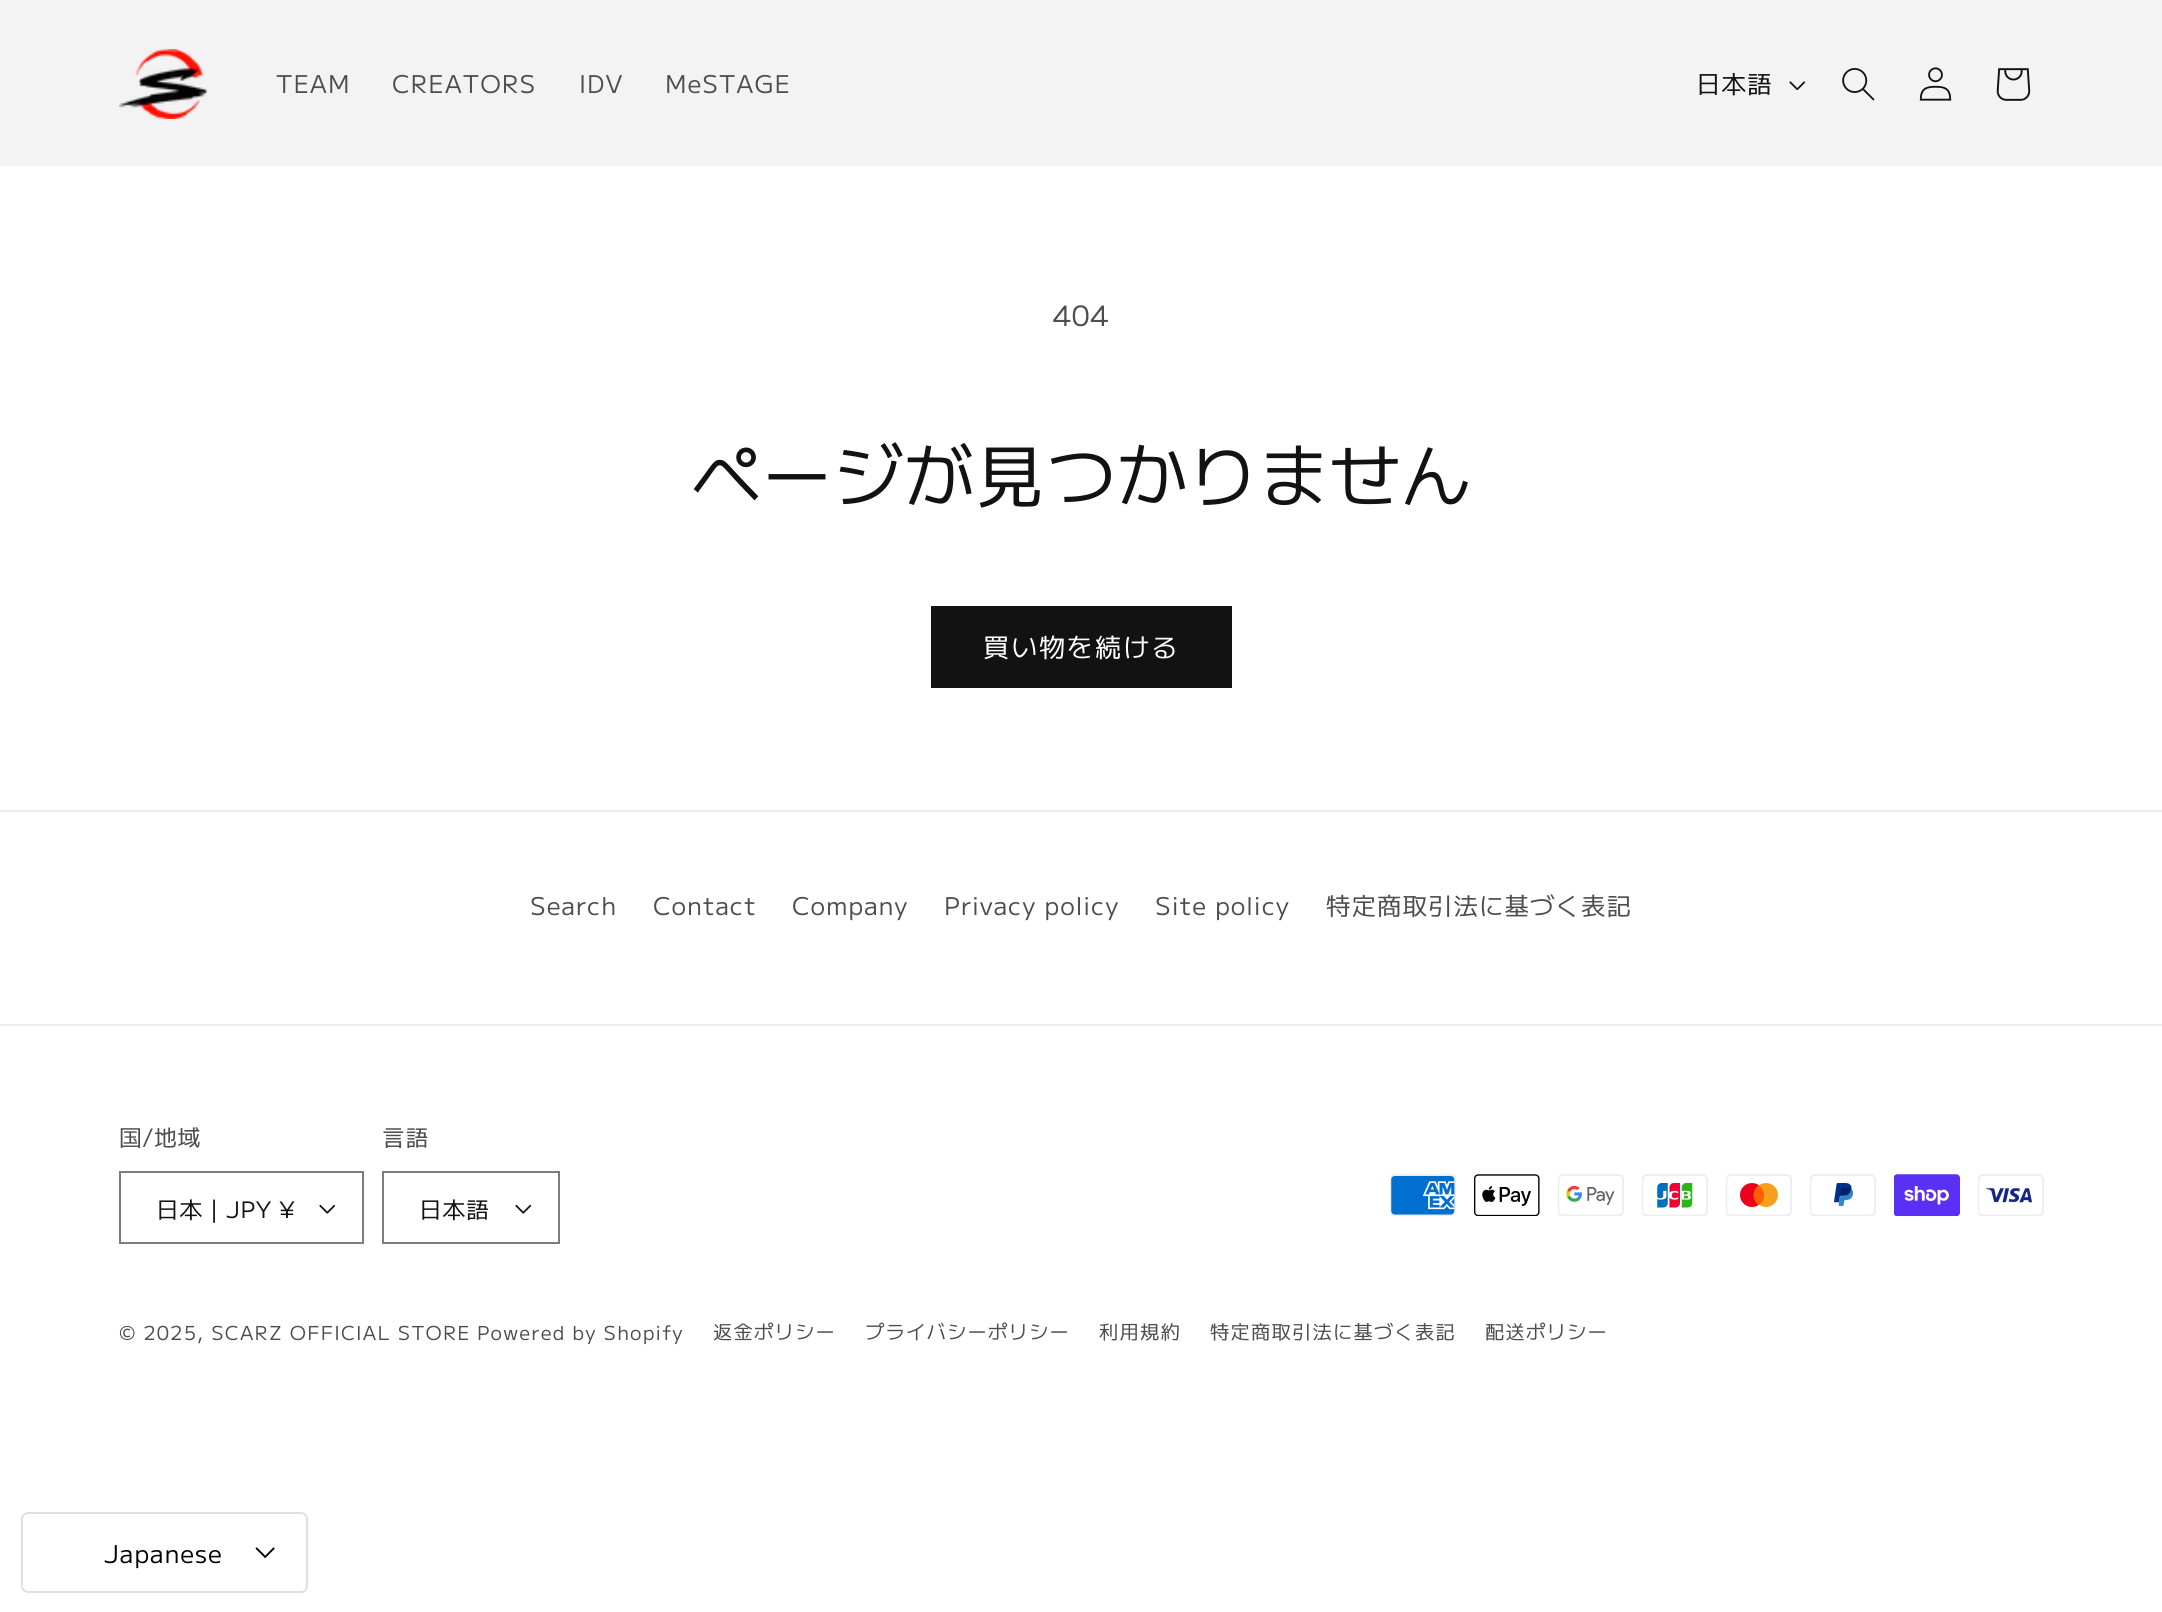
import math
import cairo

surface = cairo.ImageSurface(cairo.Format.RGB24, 2162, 1612)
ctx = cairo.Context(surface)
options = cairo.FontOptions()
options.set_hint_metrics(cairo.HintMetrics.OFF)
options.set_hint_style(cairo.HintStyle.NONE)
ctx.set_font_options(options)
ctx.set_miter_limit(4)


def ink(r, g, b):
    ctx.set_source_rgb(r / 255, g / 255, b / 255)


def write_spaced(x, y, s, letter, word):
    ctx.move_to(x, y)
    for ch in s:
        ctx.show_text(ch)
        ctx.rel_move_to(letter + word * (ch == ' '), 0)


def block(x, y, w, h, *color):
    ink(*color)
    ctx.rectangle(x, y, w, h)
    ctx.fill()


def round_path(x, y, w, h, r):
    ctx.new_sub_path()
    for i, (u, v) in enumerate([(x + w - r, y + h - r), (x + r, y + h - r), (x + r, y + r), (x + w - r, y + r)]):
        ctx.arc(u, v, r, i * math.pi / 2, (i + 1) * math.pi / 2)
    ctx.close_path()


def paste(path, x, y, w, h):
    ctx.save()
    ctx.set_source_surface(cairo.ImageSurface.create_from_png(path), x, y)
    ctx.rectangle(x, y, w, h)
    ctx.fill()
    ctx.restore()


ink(255, 255, 255)
ctx.paint()
block(0, 0, 2162, 166, 243, 243, 243)
paste("pic1.png", 119, 49, 88, 70)
ctx.select_font_face("M PLUS 1")
ctx.set_font_size(24.5)
ink(77, 77, 77)
write_spaced(276, 93, "TEAM", 1, 0)
write_spaced(392, 93, "CREATORS", 1, 0)
write_spaced(579, 93, "IDV", 1, 0)
write_spaced(665, 93, "MeSTAGE", 1, 0)
ink(18, 18, 18)
write_spaced(1696, 93, "日本語", 1, 0)
paste("pic2.png", 1789, 81, 17, 10)
paste("pic3.png", 1842, 68, 33, 33)
paste("pic4.png", 1919, 67, 33, 34)
paste("pic5.png", 1996, 68, 35, 33)
ctx.set_font_size(28)
ink(77, 77, 77)
write_spaced(1053, 326, "404", 1, 0)
ctx.set_font_size(70)
ink(18, 18, 18)
write_spaced(691, 502, "ページが見つかりません", 1, 0)
block(931, 606, 301, 82, 18, 18, 18)
ctx.set_font_size(26.25)
ink(255, 255, 255)
write_spaced(983, 657, "買い物を続ける", 1.75, 0)
block(0, 810, 2162, 2, 236, 236, 236)
ctx.set_font_size(24.5)
ink(77, 77, 77)
write_spaced(530, 915, "Search", 1, 0)
write_spaced(653, 915, "Contact", 1, 0)
write_spaced(792, 915, "Company", 1, 0)
write_spaced(944, 915, "Privacy policy", 1, 0)
write_spaced(1155, 915, "Site policy", 1, 0)
write_spaced(1326, 915, "特定商取引法に基づく表記", 1, 0)
block(0, 1024, 2162, 2, 236, 236, 236)
ctx.set_font_size(22.75)
ink(77, 77, 77)
write_spaced(119, 1146, "国/地域", 0.75, 0)
paste("pic6.png", 319, 1204, 17, 10)
ctx.rectangle(120, 1172, 243, 71)
ink(125, 125, 125)
ctx.stroke()
ink(18, 18, 18)
write_spaced(156, 1218, "日本 | JPY ¥", 0.75, 0)
ink(77, 77, 77)
write_spaced(382, 1146, "言語", 0.75, 0)
paste("pic6.png", 515, 1204, 17, 10)
ctx.rectangle(383, 1172, 176, 71)
ink(125, 125, 125)
ctx.stroke()
ink(18, 18, 18)
write_spaced(419, 1218, "日本語", 0.75, 0)
paste("pic7.png", 1390, 1174, 66, 42)
paste("pic8.png", 1474, 1174, 66, 42)
paste("pic9.png", 1558, 1174, 66, 42)
paste("pic10.png", 1642, 1174, 66, 42)
paste("pic11.png", 1726, 1174, 66, 42)
paste("pic12.png", 1810, 1174, 66, 42)
paste("pic13.png", 1894, 1174, 66, 42)
paste("pic14.png", 1978, 1174, 66, 42)
ctx.set_font_size(19.25)
ink(77, 77, 77)
write_spaced(119, 1340, "© 2025, SCARZ OFFICIAL STORE", 1.25, 0)
write_spaced(477, 1340, "Powered by Shopify", 1.25, 0)
write_spaced(713, 1339, "返金ポリシー", 1.25, 0)
write_spaced(865, 1339, "プライバシーポリシー", 1.25, 0)
write_spaced(1099, 1339, "利用規約", 1.25, 0)
write_spaced(1210, 1339, "特定商取引法に基づく表記", 1.25, 0)
write_spaced(1485, 1339, "配送ポリシー", 1.25, 0)
round_path(22, 1513, 285, 79, 6)
ink(224, 224, 224)
ctx.stroke()
ctx.set_font_size(24.5)
ink(0, 0, 0)
write_spaced(104, 1563, "Japanese", 1, 0)
paste("pic15.png", 255, 1547, 20, 12)
surface.write_to_png("screenshot.png")
